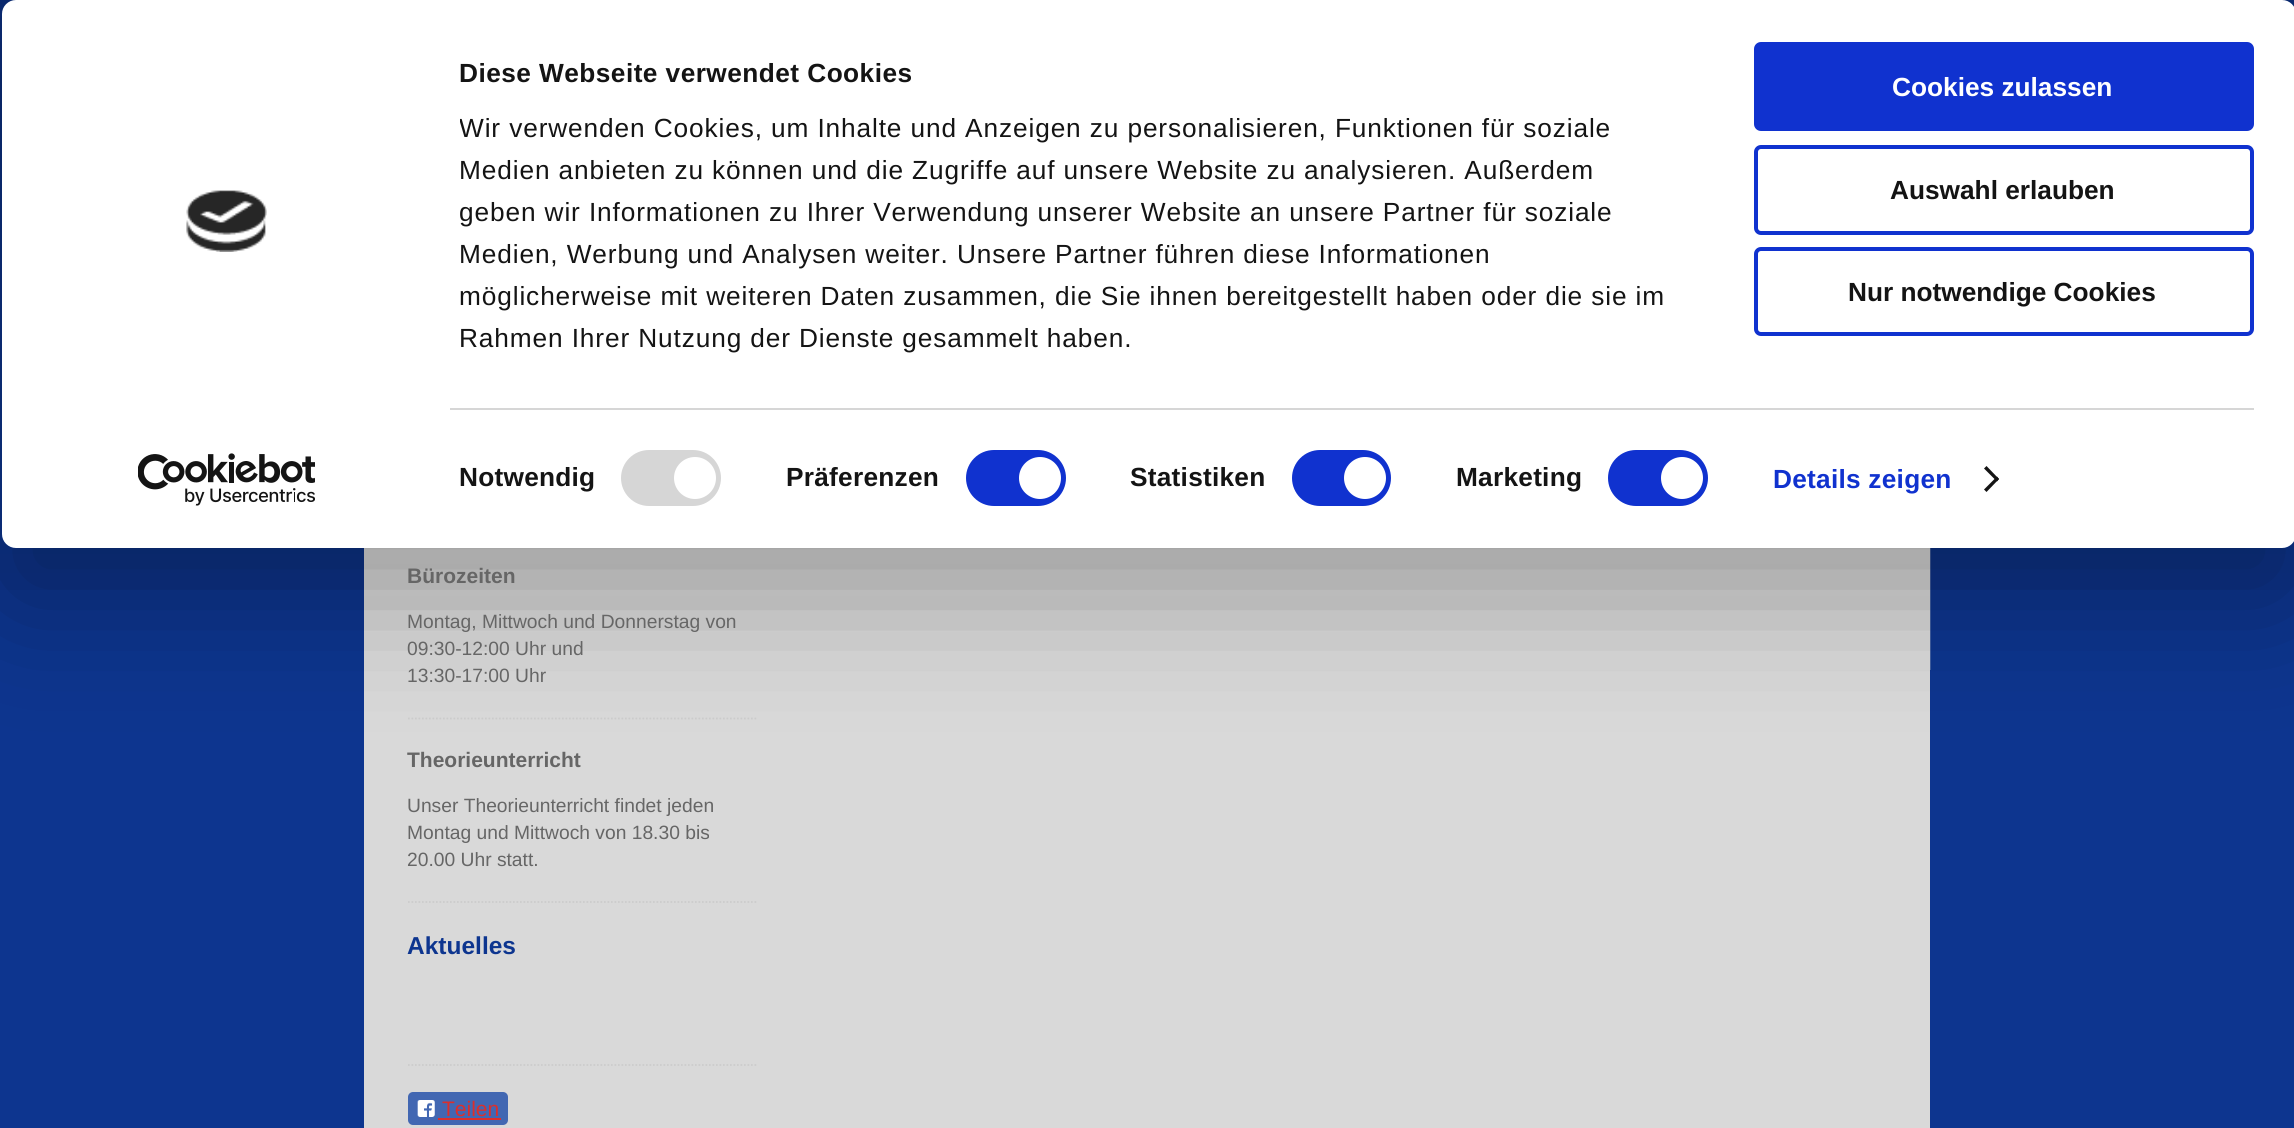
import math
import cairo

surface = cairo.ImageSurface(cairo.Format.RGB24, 2294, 1128)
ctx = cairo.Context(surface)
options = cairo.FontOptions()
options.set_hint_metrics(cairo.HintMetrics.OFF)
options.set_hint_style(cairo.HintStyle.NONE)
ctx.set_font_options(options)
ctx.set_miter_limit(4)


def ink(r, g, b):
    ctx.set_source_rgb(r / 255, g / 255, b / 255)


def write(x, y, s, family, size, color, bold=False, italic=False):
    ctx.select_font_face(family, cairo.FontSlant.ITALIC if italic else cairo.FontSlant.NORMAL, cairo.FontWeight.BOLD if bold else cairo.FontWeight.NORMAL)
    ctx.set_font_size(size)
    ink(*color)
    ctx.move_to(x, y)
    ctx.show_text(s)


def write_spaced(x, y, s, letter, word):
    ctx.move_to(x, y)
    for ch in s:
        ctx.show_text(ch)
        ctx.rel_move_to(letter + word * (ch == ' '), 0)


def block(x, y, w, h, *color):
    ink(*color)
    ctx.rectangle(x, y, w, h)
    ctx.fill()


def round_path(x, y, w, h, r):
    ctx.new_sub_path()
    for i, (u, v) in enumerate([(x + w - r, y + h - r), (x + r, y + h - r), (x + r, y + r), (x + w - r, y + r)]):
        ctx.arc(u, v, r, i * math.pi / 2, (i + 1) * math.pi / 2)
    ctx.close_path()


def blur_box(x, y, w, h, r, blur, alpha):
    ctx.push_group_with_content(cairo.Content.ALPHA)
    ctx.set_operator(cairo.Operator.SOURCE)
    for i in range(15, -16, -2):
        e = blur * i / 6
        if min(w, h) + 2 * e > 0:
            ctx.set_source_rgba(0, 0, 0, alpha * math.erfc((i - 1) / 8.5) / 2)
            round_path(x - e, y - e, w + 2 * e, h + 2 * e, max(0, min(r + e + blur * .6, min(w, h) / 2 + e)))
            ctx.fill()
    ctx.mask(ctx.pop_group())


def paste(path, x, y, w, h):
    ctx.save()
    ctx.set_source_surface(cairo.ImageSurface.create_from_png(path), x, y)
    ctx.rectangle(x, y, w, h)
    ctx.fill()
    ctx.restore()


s1 = dict(family="Liberation Sans", size=26.25, color=(255, 255, 255), bold=True)
s2 = dict(family="Liberation Sans", size=26.25, color=(20, 20, 20), bold=True)
s3 = dict(family="Liberation Sans", size=21, color=(102, 102, 102), bold=True)
s4 = dict(family="Liberation Sans", size=19.25, color=(102, 102, 102))
s5 = dict(family="Liberation Sans", size=24.5, color=(13, 53, 143), bold=True)
s6 = dict(family="Liberation Sans", size=21, color=(219, 47, 44))

ink(13, 53, 143)
ctx.paint()
paste("pic3.png", 0, 0, 2294, 590)
block(364, 670, 1566, 458, 217, 217, 217)
paste("pic4.png", 364, 548, 1567, 122)
ctx.new_path()
ctx.move_to(408, 718.5)
ctx.line_to(758, 718.5)
ink(204, 204, 204)
ctx.set_line_width(1.8)
ctx.set_dash([1.75, 1.75])
ctx.stroke()
ctx.save()
ctx.set_fill_rule(cairo.FillRule.EVEN_ODD)
ctx.new_path()
ctx.move_to(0, 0)
ctx.line_to(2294, 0)
ctx.line_to(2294, 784)
ctx.line_to(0, 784)
ctx.close_path()
ctx.move_to(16, 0)
ctx.line_to(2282, 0)
ctx.curve_to(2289.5, 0, 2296, 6.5, 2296, 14)
ctx.line_to(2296, 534)
ctx.curve_to(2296, 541.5, 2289.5, 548, 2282, 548)
ctx.line_to(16, 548)
ctx.curve_to(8.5, 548, 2, 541.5, 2, 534)
ctx.line_to(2, 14)
ctx.curve_to(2, 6.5, 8.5, 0, 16, 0)
ctx.close_path()
ctx.clip()
ink(0, 0, 0)
blur_box(2, 53, 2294, 547, 14, 61, 0.3)
ctx.restore()
ink(255, 255, 255)
round_path(2, 0, 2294, 548, 14)
ctx.fill()
paste("pic1.png", 186, 190, 81, 62)
paste("pic2.png", 138, 453, 177, 53)
ctx.select_font_face("Liberation Sans", cairo.FontSlant.NORMAL, cairo.FontWeight.BOLD)
ctx.set_font_size(26.25)
ink(20, 20, 20)
write_spaced(459, 82, "Diese Webseite verwendet Cookies", 0.45, 0)
ctx.save()
ctx.rectangle(460, 53, 1243, 306)
ctx.clip()
ctx.select_font_face("Liberation Sans")
write_spaced(459, 137, "Wir verwenden Cookies, um Inhalte und Anzeigen zu personalisieren, Funktionen für soziale", 0.88, 0)
ctx.restore()
ctx.select_font_face("Liberation Sans")
write_spaced(459, 179, "Medien anbieten zu können und die Zugriffe auf unsere Website zu analysieren. Außerdem", 0.88, 0)
ctx.save()
ctx.rectangle(460, 53, 1243, 306)
ctx.clip()
write_spaced(459, 221, "geben wir Informationen zu Ihrer Verwendung unserer Website an unsere Partner für soziale", 0.88, 0)
ctx.restore()
write_spaced(459, 263, "Medien, Werbung und Analysen weiter. Unsere Partner führen diese Informationen", 0.88, 0)
write_spaced(459, 305, "möglicherweise mit weiteren Daten zusammen, die Sie ihnen bereitgestellt haben oder die sie im", 0.88, 0)
write_spaced(459, 347, "Rahmen Ihrer Nutzung der Dienste gesammelt haben.", 0.88, 0)
block(450, 408, 1804, 2, 214, 214, 214)
ctx.select_font_face("Liberation Sans", cairo.FontSlant.NORMAL, cairo.FontWeight.BOLD)
ink(20, 20, 20)
write_spaced(459, 486, "Notwendig", 0.25, 0)
ink(214, 214, 214)
round_path(621, 450, 100, 56, 28)
ctx.fill()
ink(255, 255, 255)
ctx.arc(695, 478, 21, 0, 2 * math.pi)
ctx.fill()
ink(20, 20, 20)
write_spaced(786, 486, "Präferenzen", 0.25, 0)
ink(16, 50, 207)
round_path(966, 450, 100, 56, 28)
ctx.fill()
ink(255, 255, 255)
ctx.arc(1040, 478, 21, 0, 2 * math.pi)
ctx.fill()
ink(20, 20, 20)
write_spaced(1130, 486, "Statistiken", 0.25, 0)
ink(16, 50, 207)
round_path(1292, 450, 99, 56, 28)
ctx.fill()
ink(255, 255, 255)
ctx.arc(1365, 478, 21, 0, 2 * math.pi)
ctx.fill()
ink(20, 20, 20)
write_spaced(1456, 486, "Marketing", 0.25, 0)
ink(16, 50, 207)
round_path(1608, 450, 100, 56, 28)
ctx.fill()
ink(255, 255, 255)
ctx.arc(1682, 478, 21, 0, 2 * math.pi)
ctx.fill()
ink(16, 50, 207)
write_spaced(1773, 488, "Details zeigen", 0.25, 0)
ink(20, 20, 20)
ctx.new_path()
ctx.move_to(1986.5, 466)
ctx.line_to(1999, 479)
ctx.line_to(1997, 481.5)
ctx.line_to(1984, 468.5)
ctx.close_path()
ctx.fill()
ctx.new_path()
ctx.move_to(1997, 476.5)
ctx.line_to(1999, 479)
ctx.line_to(1986.5, 492)
ctx.line_to(1984, 489.5)
ctx.close_path()
ctx.fill()
ink(16, 50, 207)
round_path(1756, 44, 496, 85, 5)
ctx.fill_preserve()
ctx.set_line_width(4)
ctx.set_dash([])
ctx.stroke()
write(1892, 96, "Cookies zulassen", **s1)
round_path(1756, 147, 496, 86, 5)
ink(16, 50, 207)
ctx.stroke()
write(1890, 199, "Auswahl erlauben", **s2)
round_path(1756, 249, 496, 85, 5)
ink(16, 50, 207)
ctx.stroke()
write(1848, 301, "Nur notwendige Cookies", **s2)
write(407, 583, "Bürozeiten", **s3)
write(407, 628, "Montag, Mittwoch und Donnerstag von", **s4)
write(407, 655, "09:30-12:00 Uhr und", **s4)
write(407, 682, "13:30-17:00 Uhr", **s4)
write(407, 767, "Theorieunterricht", **s3)
write(407, 812, "Unser Theorieunterricht findet jeden", **s4)
write(407, 839, "Montag und Mittwoch von 18.30 bis", **s4)
write(407, 866, "20.00 Uhr statt.", **s4)
ctx.new_path()
ctx.move_to(408, 902)
ctx.line_to(758, 902)
ink(204, 204, 204)
ctx.set_line_width(1.8)
ctx.set_dash([1.75, 1.75])
ctx.stroke()
write(407, 954, "Aktuelles", **s5)
ctx.new_path()
ctx.move_to(408, 1065)
ctx.line_to(758, 1065)
ink(204, 204, 204)
ctx.stroke()
ink(66, 103, 178)
round_path(408, 1092, 100, 33, 5)
ctx.fill()
paste("pic5.png", 417, 1100, 18, 17)
write(442, 1116, "Teilen", **s6)
block(438, 1118, 63, 2, 219, 47, 44)
surface.write_to_png("screenshot.png")
